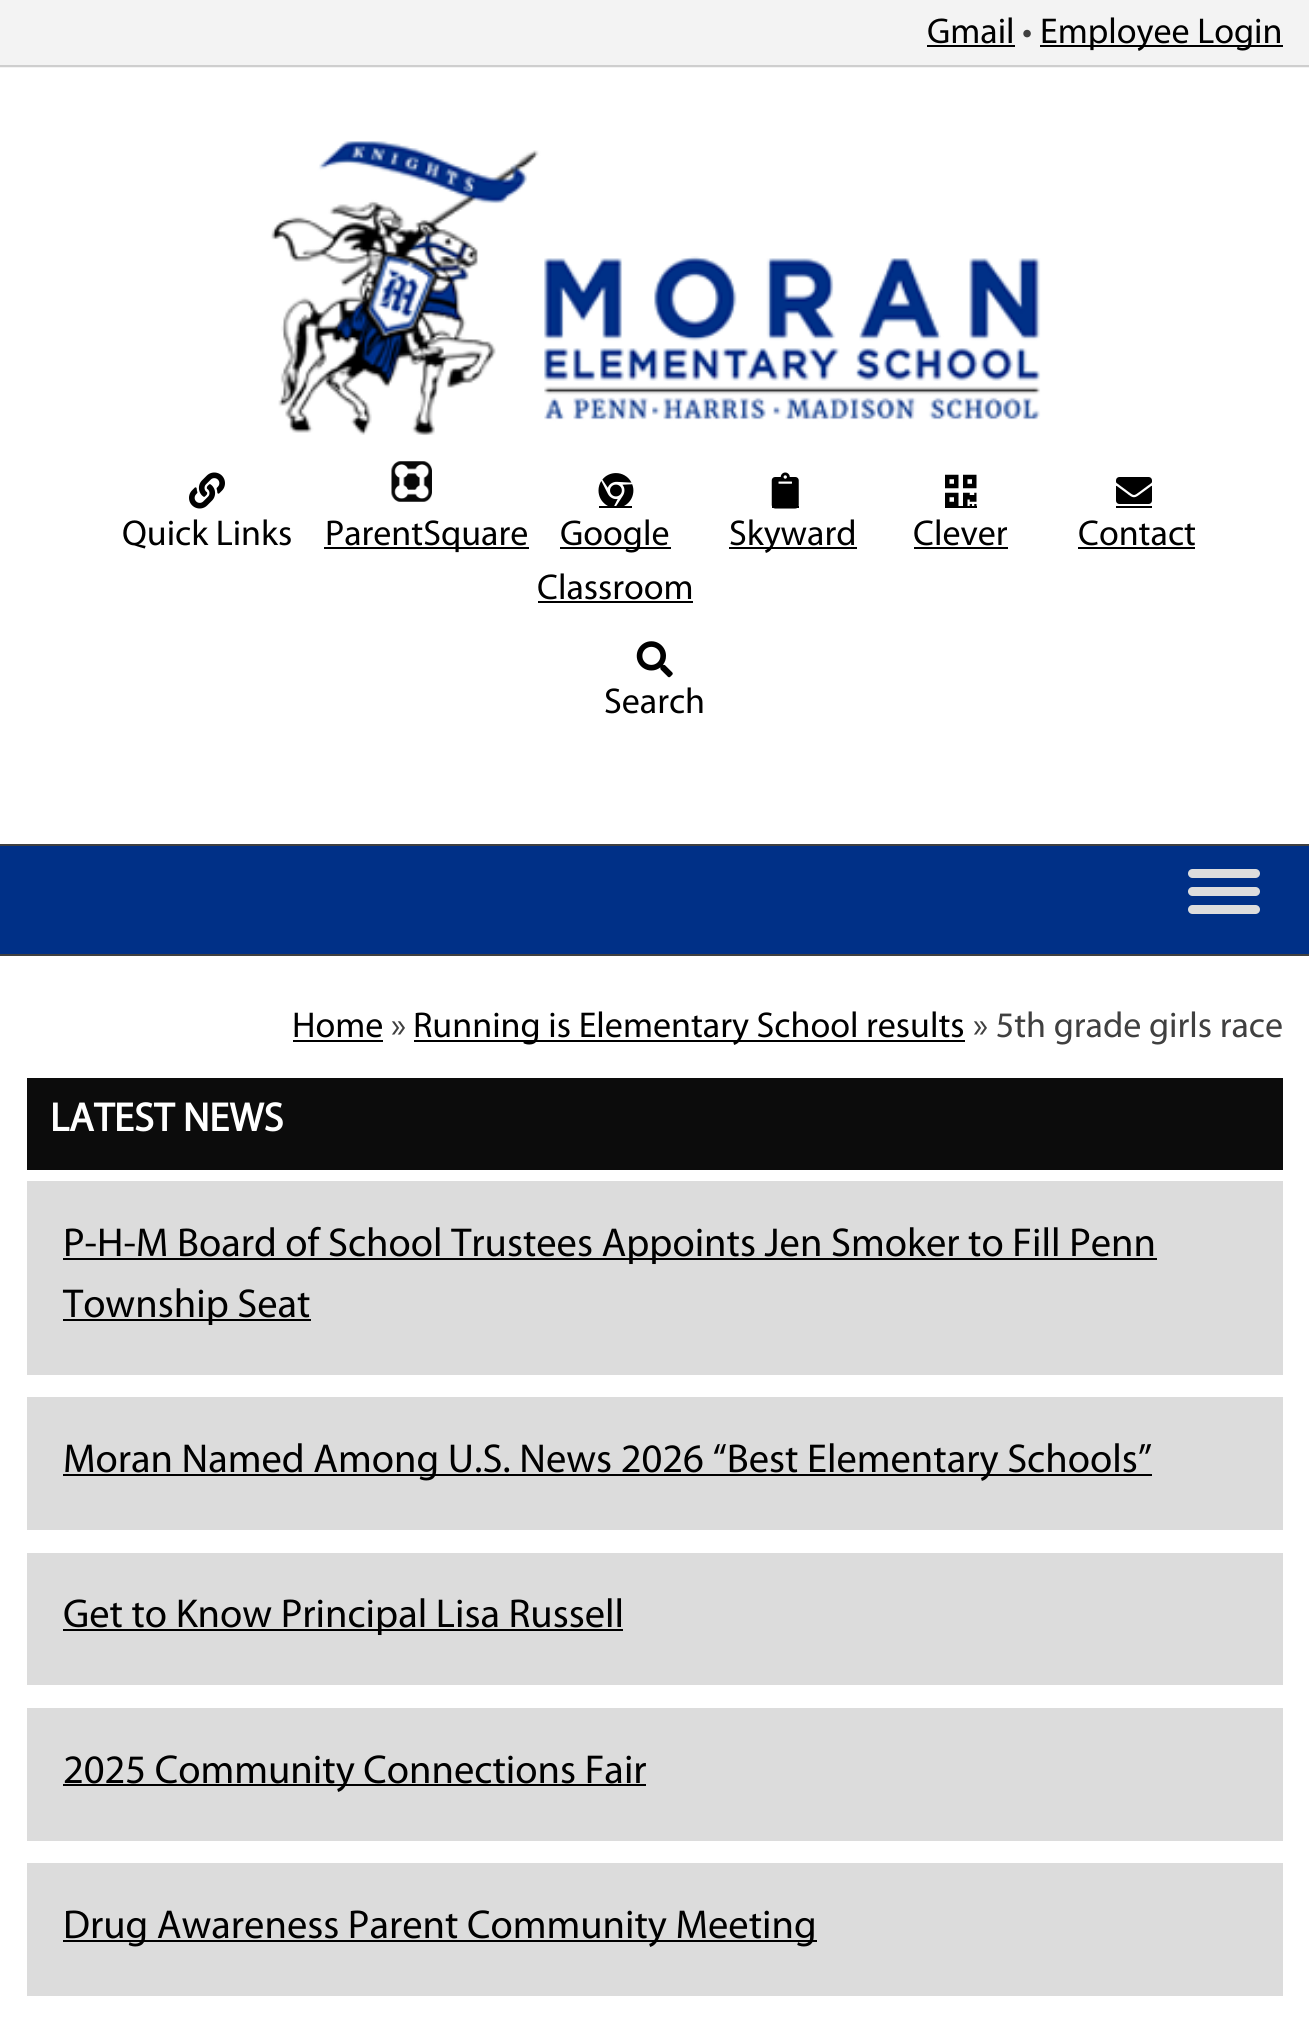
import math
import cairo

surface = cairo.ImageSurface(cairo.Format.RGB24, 1309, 2017)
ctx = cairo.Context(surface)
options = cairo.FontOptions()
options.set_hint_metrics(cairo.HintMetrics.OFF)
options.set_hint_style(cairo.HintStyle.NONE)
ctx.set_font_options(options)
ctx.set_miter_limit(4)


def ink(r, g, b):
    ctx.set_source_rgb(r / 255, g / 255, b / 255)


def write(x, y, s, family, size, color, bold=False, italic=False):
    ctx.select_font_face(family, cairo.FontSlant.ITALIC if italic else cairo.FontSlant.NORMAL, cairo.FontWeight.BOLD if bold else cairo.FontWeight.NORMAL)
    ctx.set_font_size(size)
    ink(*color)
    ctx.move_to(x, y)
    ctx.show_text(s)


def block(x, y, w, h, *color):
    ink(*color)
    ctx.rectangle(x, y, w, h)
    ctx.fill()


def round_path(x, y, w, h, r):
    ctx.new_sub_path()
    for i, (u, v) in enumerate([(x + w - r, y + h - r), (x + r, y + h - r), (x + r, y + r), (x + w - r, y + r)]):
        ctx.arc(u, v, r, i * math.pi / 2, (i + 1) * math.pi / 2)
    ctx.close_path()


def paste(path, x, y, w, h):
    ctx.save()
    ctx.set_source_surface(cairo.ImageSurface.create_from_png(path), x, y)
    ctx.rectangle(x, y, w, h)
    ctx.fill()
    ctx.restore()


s1 = dict(family="Myriad", size=36, color=(0, 0, 0))
s2 = dict(family="Myriad", size=36, color=(64, 64, 64))
s3 = dict(family="Myriad", size=40.5, color=(255, 255, 255), bold=True)
s4 = dict(family="Myriad", size=40.5, color=(0, 0, 0))

ink(255, 255, 255)
ctx.paint()
block(0, 0, 1309, 68, 243, 243, 243)
block(0, 65, 1309, 2, 206, 206, 206)
write(927, 43, "Gmail", **s1)
block(927, 45, 88, 2, 0, 0, 0)
write(1022, 43, "•", **s2)
block(1040, 45, 243, 2, 0, 0, 0)
write(1040, 43, "Employee Login", **s1)
paste("pic1.png", 270, 141, 771, 295)
paste("pic2.png", 189, 472, 36, 37)
write(122, 545, "Quick Links", **s1)
paste("pic3.png", 391, 461, 41, 41)
block(324, 547, 205, 2, 0, 0, 0)
write(325, 545, "ParentSquare", **s1)
paste("pic4.png", 598, 473, 36, 33)
block(599, 506, 33, 2, 0, 0, 0)
block(560, 547, 111, 2, 0, 0, 0)
write(560, 545, "Google", **s1)
write(537, 599, "Classroom", **s1)
block(538, 601, 155, 2, 0, 0, 0)
block(772, 506, 27, 2, 0, 0, 0)
paste("pic5.png", 771, 472, 28, 37)
block(729, 547, 128, 2, 0, 0, 0)
write(729, 545, "Skyward", **s1)
paste("pic6.png", 945, 474, 32, 32)
block(945, 506, 32, 2, 0, 0, 0)
write(913, 545, "Clever", **s1)
block(914, 547, 94, 2, 0, 0, 0)
paste("pic7.png", 1116, 477, 36, 27)
block(1116, 506, 36, 2, 0, 0, 0)
write(1078, 545, "Contact", **s1)
block(1078, 547, 117, 2, 0, 0, 0)
paste("pic8.png", 636, 641, 37, 37)
write(604, 713, "Search", **s1)
block(0, 846, 1309, 108, 0, 48, 135)
block(0, 844, 1309, 2, 64, 64, 64)
block(0, 954, 1309, 2, 64, 64, 64)
ink(221, 221, 221)
round_path(1188, 869, 72, 9, 4.5)
ctx.fill()
round_path(1188, 887, 72, 9, 4.5)
ctx.fill()
round_path(1188, 905, 72, 9, 4.5)
ctx.fill()
write(292, 1037, "Home", **s1)
block(293, 1040, 90, 2, 0, 0, 0)
write(391, 1037, "»", **s2)
block(414, 1040, 551, 2, 0, 0, 0)
write(413, 1037, "Running is Elementary School results", **s1)
write(973, 1037, "» 5th grade girls race", **s2)
block(27, 1078, 1256, 92, 12, 12, 12)
write(50, 1131, "LATEST NEWS", **s3)
block(27, 1181, 1256, 194, 220, 220, 220)
block(63, 1258, 1094, 2, 0, 0, 0)
write(63, 1256, "P-H-M Board of School Trustees Appoints Jen Smoker to Fill Penn", **s4)
block(63, 1319, 248, 2, 0, 0, 0)
write(63, 1317, "Township Seat", **s4)
block(27, 1397, 1256, 133, 220, 220, 220)
block(63, 1474, 1089, 2, 0, 0, 0)
write(63, 1472, "Moran Named Among U.S. News 2026 “Best Elementary Schools”", **s4)
block(27, 1553, 1256, 132, 220, 220, 220)
block(63, 1629, 560, 2, 0, 0, 0)
write(63, 1627, "Get to Know Principal Lisa Russell", **s4)
block(27, 1708, 1256, 133, 220, 220, 220)
block(63, 1784, 583, 2, 0, 0, 0)
write(63, 1783, "2025 Community Connections Fair", **s4)
block(27, 1863, 1256, 133, 220, 220, 220)
block(63, 1940, 754, 2, 0, 0, 0)
write(63, 1938, "Drug Awareness Parent Community Meeting", **s4)
surface.write_to_png("screenshot.png")
